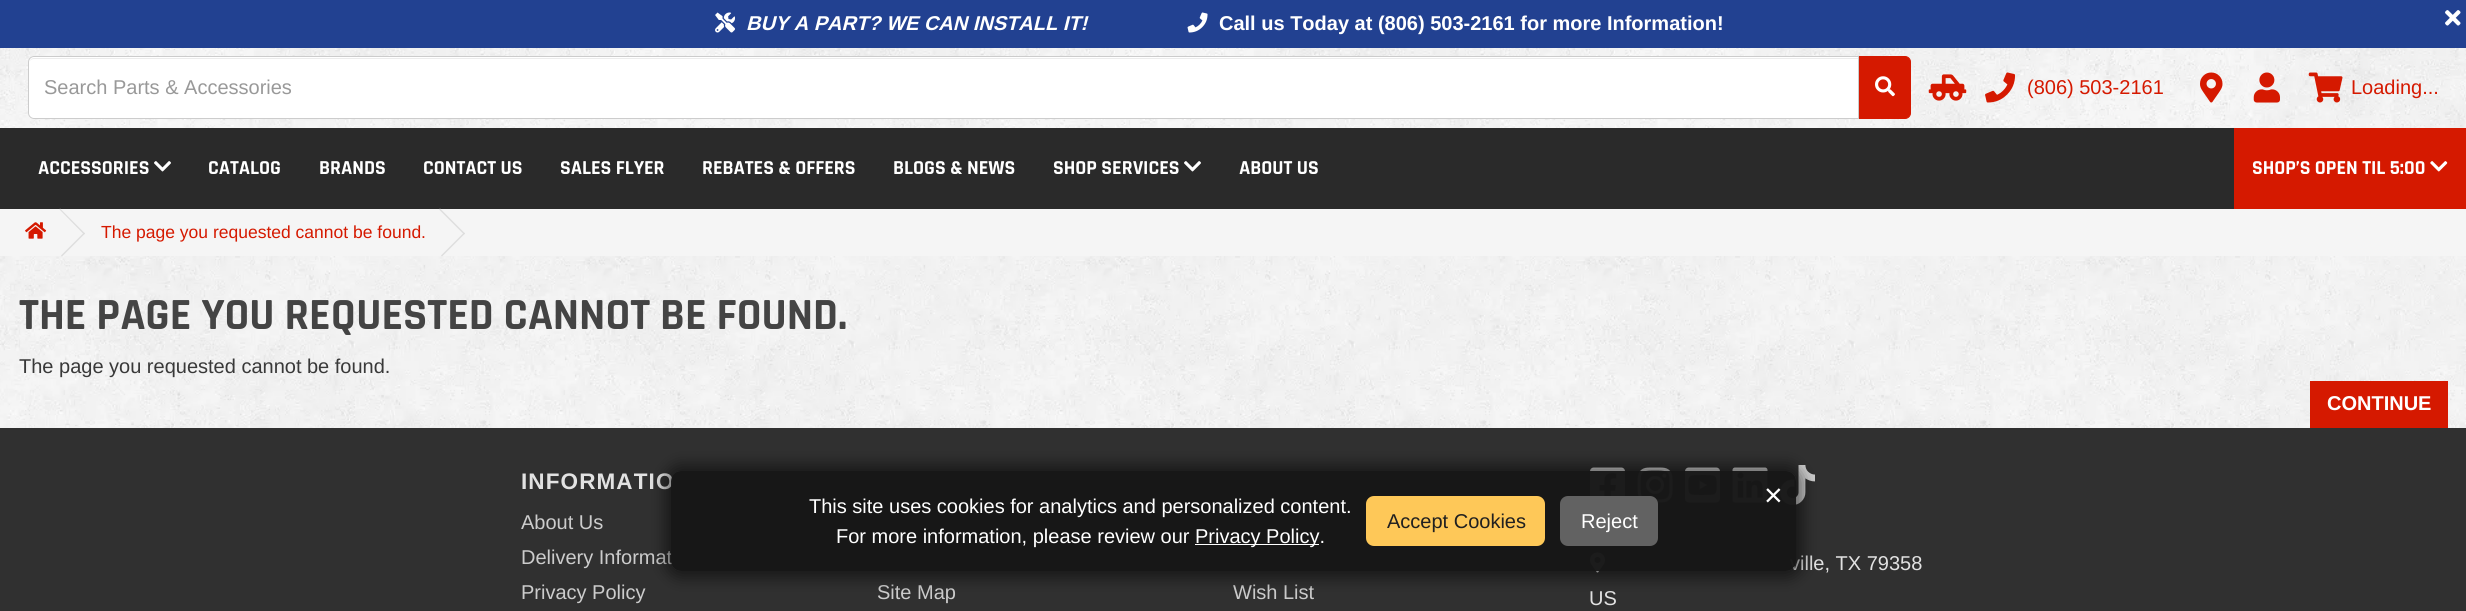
import math
import cairo

surface = cairo.ImageSurface(cairo.Format.RGB24, 2466, 611)
ctx = cairo.Context(surface)
options = cairo.FontOptions()
options.set_hint_metrics(cairo.HintMetrics.OFF)
options.set_hint_style(cairo.HintStyle.NONE)
ctx.set_font_options(options)
ctx.set_miter_limit(4)


def ink(r, g, b):
    ctx.set_source_rgb(r / 255, g / 255, b / 255)


def write(x, y, s, family, size, color, bold=False, italic=False):
    ctx.select_font_face(family, cairo.FontSlant.ITALIC if italic else cairo.FontSlant.NORMAL, cairo.FontWeight.BOLD if bold else cairo.FontWeight.NORMAL)
    ctx.set_font_size(size)
    ink(*color)
    ctx.move_to(x, y)
    ctx.show_text(s)


def write_spaced(x, y, s, letter, word):
    ctx.move_to(x, y)
    for ch in s:
        ctx.show_text(ch)
        ctx.rel_move_to(letter + word * (ch == ' '), 0)


def block(x, y, w, h, *color):
    ink(*color)
    ctx.rectangle(x, y, w, h)
    ctx.fill()


def round_path(x, y, w, h, r):
    ctx.new_sub_path()
    for i, (u, v) in enumerate([(x + w - r, y + h - r), (x + r, y + h - r), (x + r, y + r), (x + w - r, y + r)]):
        ctx.arc(u, v, r, i * math.pi / 2, (i + 1) * math.pi / 2)
    ctx.close_path()


def blur_box(x, y, w, h, r, blur, alpha):
    ctx.push_group_with_content(cairo.Content.ALPHA)
    ctx.set_operator(cairo.Operator.SOURCE)
    for i in range(15, -16, -2):
        e = blur * i / 6
        if min(w, h) + 2 * e > 0:
            ctx.set_source_rgba(0, 0, 0, alpha * math.erfc((i - 1) / 8.5) / 2)
            round_path(x - e, y - e, w + 2 * e, h + 2 * e, max(0, min(r + e + blur * .6, min(w, h) / 2 + e)))
            ctx.fill()
    ctx.mask(ctx.pop_group())


def paste(path, x, y, w, h):
    ctx.save()
    ctx.set_source_surface(cairo.ImageSurface.create_from_png(path), x, y)
    ctx.rectangle(x, y, w, h)
    ctx.fill()
    ctx.restore()


s1 = dict(family="Arimo", size=20, color=(255, 255, 255), bold=True, italic=True)
s2 = dict(family="Arimo", size=20, color=(255, 255, 255), bold=True)
s3 = dict(family="Arimo", size=20, color=(153, 153, 153))
s4 = dict(family="Arimo", size=20, color=(213, 25, 0))
s5 = dict(family="Rajdhani", size=20, color=(255, 255, 255), bold=True)
s6 = dict(family="Arimo", size=17.5, color=(213, 25, 0))
s7 = dict(family="Rajdhani", size=45, color=(68, 68, 68), bold=True)
s8 = dict(family="Arimo", size=20, color=(57, 57, 57))
s9 = dict(family="Arimo", size=20, color=(204, 204, 204))
s10 = dict(family="Arimo", size=20, color=(226, 226, 226))
s11 = dict(family="Arimo", size=32, color=(255, 255, 255))
s12 = dict(family="Arimo", size=20, color=(255, 255, 255))
s13 = dict(family="Arimo", size=20, color=(32, 32, 32))

ink(255, 255, 255)
ctx.paint()
paste("pic1.png", 0, 48, 2466, 380)
block(0, 0, 2466, 48, 34, 65, 145)
paste("pic2.png", 715, 12, 20, 21)
write(746, 30, "BUY A PART? WE CAN INSTALL IT!", **s1)
paste("pic3.png", 1187, 12, 21, 21)
write(1219, 30, "Call us Today at (806) 503-2161 for more Information!", **s2)
paste("pic4.png", 2445, 10, 16, 16)
ctx.new_path()
ctx.move_to(34, 56)
ctx.line_to(1859, 56)
ctx.line_to(1859, 119)
ctx.line_to(34, 119)
ctx.curve_to(30.5, 119, 28, 116.5, 28, 113)
ctx.line_to(28, 62)
ctx.curve_to(28, 58.5, 30.5, 56, 34, 56)
ctx.close_path()
ctx.fill()
ink(236, 236, 236)
ctx.new_path()
ctx.move_to(34, 59)
ctx.line_to(1858, 59)
ctx.line_to(1858, 58)
ctx.line_to(34, 58)
ctx.curve_to(31, 58, 29, 61, 29, 64)
ctx.curve_to(29, 61, 31, 59, 34, 59)
ctx.close_path()
ctx.fill()
ctx.new_path()
ctx.move_to(34, 56.5)
ctx.line_to(1858.5, 56.5)
ctx.line_to(1858.5, 118.5)
ctx.line_to(34, 118.5)
ctx.curve_to(31, 118.5, 28.5, 116, 28.5, 113)
ctx.line_to(28.5, 62)
ctx.curve_to(28.5, 59, 31, 56.5, 34, 56.5)
ctx.close_path()
ink(204, 204, 204)
ctx.set_line_width(1)
ctx.stroke()
write(44, 94, "Search Parts & Accessories", **s3)
ink(213, 25, 0)
ctx.new_path()
ctx.move_to(1859.5, 56.5)
ctx.line_to(1905, 56.5)
ctx.curve_to(1908, 56.5, 1910.5, 59, 1910.5, 62)
ctx.line_to(1910.5, 113)
ctx.curve_to(1910.5, 116, 1908, 118.5, 1905, 118.5)
ctx.line_to(1859.5, 118.5)
ctx.close_path()
ctx.fill_preserve()
ctx.stroke()
paste("pic5.png", 1875, 76, 20, 21)
paste("pic6.png", 1928, 74, 39, 27)
paste("pic7.png", 1985, 72, 31, 31)
write(2027, 94, "(806) 503-2161", **s4)
paste("pic8.png", 2200, 72, 23, 31)
paste("pic9.png", 2253, 72, 27, 31)
paste("pic10.png", 2308, 72, 35, 31)
write(2351, 94, "Loading...", **s4)
block(0, 128, 2234, 81, 42, 42, 42)
write(38, 174, "ACCESSORIES", **s5)
paste("pic11.png", 154, 161, 17, 11)
write(208, 174, "CATALOG", **s5)
write(319, 174, "BRANDS", **s5)
write(423, 174, "CONTACT US", **s5)
write(560, 174, "SALES FLYER", **s5)
write(702, 174, "REBATES & OFFERS", **s5)
write(893, 174, "BLOGS & NEWS", **s5)
write(1053, 174, "SHOP SERVICES", **s5)
paste("pic11.png", 1184, 161, 17, 11)
write(1239, 174, "ABOUT US", **s5)
block(2234, 128, 232, 81, 213, 25, 0)
write(2252, 174, "SHOP’S OPEN TIL 5:00", **s5)
paste("pic12.png", 2430, 161, 18, 11)
block(0, 209, 2466, 47, 245, 245, 245)
paste("pic13.png", 25, 222, 22, 17)
ink(221, 221, 221)
ctx.new_path()
ctx.move_to(59.5, 209.5)
ctx.line_to(60, 208.5)
ctx.line_to(85, 233.5)
ctx.line_to(84, 234.5)
ctx.close_path()
ctx.fill()
ctx.new_path()
ctx.move_to(61, 255.5)
ctx.line_to(84, 232.5)
ctx.line_to(85, 233.5)
ctx.line_to(62, 256.5)
ctx.close_path()
ctx.fill()
write(101, 238, "The page you requested cannot be found.", **s6)
ink(221, 221, 221)
ctx.new_path()
ctx.move_to(439, 209.5)
ctx.line_to(440, 208.5)
ctx.line_to(465, 233.5)
ctx.line_to(464, 234.5)
ctx.close_path()
ctx.fill()
ctx.new_path()
ctx.move_to(441, 255.5)
ctx.line_to(464, 232.5)
ctx.line_to(465, 233.5)
ctx.line_to(442, 256.5)
ctx.close_path()
ctx.fill()
write(19, 329, "THE PAGE YOU REQUESTED CANNOT BE FOUND.", **s7)
write(19, 373, "The page you requested cannot be found.", **s8)
block(2310, 381, 138, 47, 213, 25, 0)
write(2327, 410, "CONTINUE", **s2)
block(0, 428, 2466, 183, 48, 48, 48)
ctx.set_font_size(22.5)
ink(226, 226, 226)
write_spaced(521, 489, "INFORMATIO", 1.1, 0)
write(521, 529, "About Us", **s9)
write(521, 564, "Delivery Informat", **s9)
write(521, 599, "Privacy Policy", **s9)
write(877, 599, "Site Map", **s9)
write(1233, 599, "Wish List", **s9)
paste("pic14.png", 1590, 467, 35, 29)
paste("pic15.png", 1637, 467, 36, 36)
paste("pic16.png", 1685, 467, 35, 36)
paste("pic17.png", 1732, 467, 36, 36)
paste("pic18.png", 1780, 465, 35, 40)
paste("pic19.png", 1590, 552, 15, 21)
write(1790, 570, "ville, TX 79358", **s10)
write(1589, 605, "US", **s10)
ctx.save()
ctx.set_fill_rule(cairo.FillRule.EVEN_ODD)
ctx.new_path()
ctx.move_to(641, 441)
ctx.line_to(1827, 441)
ctx.line_to(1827, 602)
ctx.line_to(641, 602)
ctx.close_path()
ctx.move_to(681, 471)
ctx.line_to(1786, 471)
ctx.curve_to(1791.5, 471, 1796, 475.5, 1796, 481)
ctx.line_to(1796, 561)
ctx.curve_to(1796, 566.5, 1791.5, 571, 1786, 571)
ctx.line_to(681, 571)
ctx.curve_to(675.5, 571, 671, 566.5, 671, 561)
ctx.line_to(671, 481)
ctx.curve_to(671, 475.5, 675.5, 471, 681, 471)
ctx.close_path()
ctx.clip()
ink(0, 0, 0)
blur_box(665, 465, 1138, 113, 16, 7.5, 0.5)
ctx.restore()
ctx.set_source_rgba(0.09, 0.09, 0.09, 0.97)
round_path(671, 471, 1125, 100, 10)
ctx.fill()
write(1764, 506, "×", **s11)
write(809, 513, "This site uses cookies for analytics and personalized content.", **s12)
write(836, 543, "For more information, please review our", **s12)
block(1195, 544, 124, 1, 255, 255, 255)
write(1195, 543, "Privacy Policy.", **s12)
ink(254, 200, 88)
round_path(1366, 496, 179, 50, 8)
ctx.fill()
write(1387, 528, "Accept Cookies", **s13)
ink(98, 98, 98)
round_path(1560, 496, 98, 50, 8)
ctx.fill()
write(1581, 528, "Reject", **s12)
surface.write_to_png("screenshot.png")
